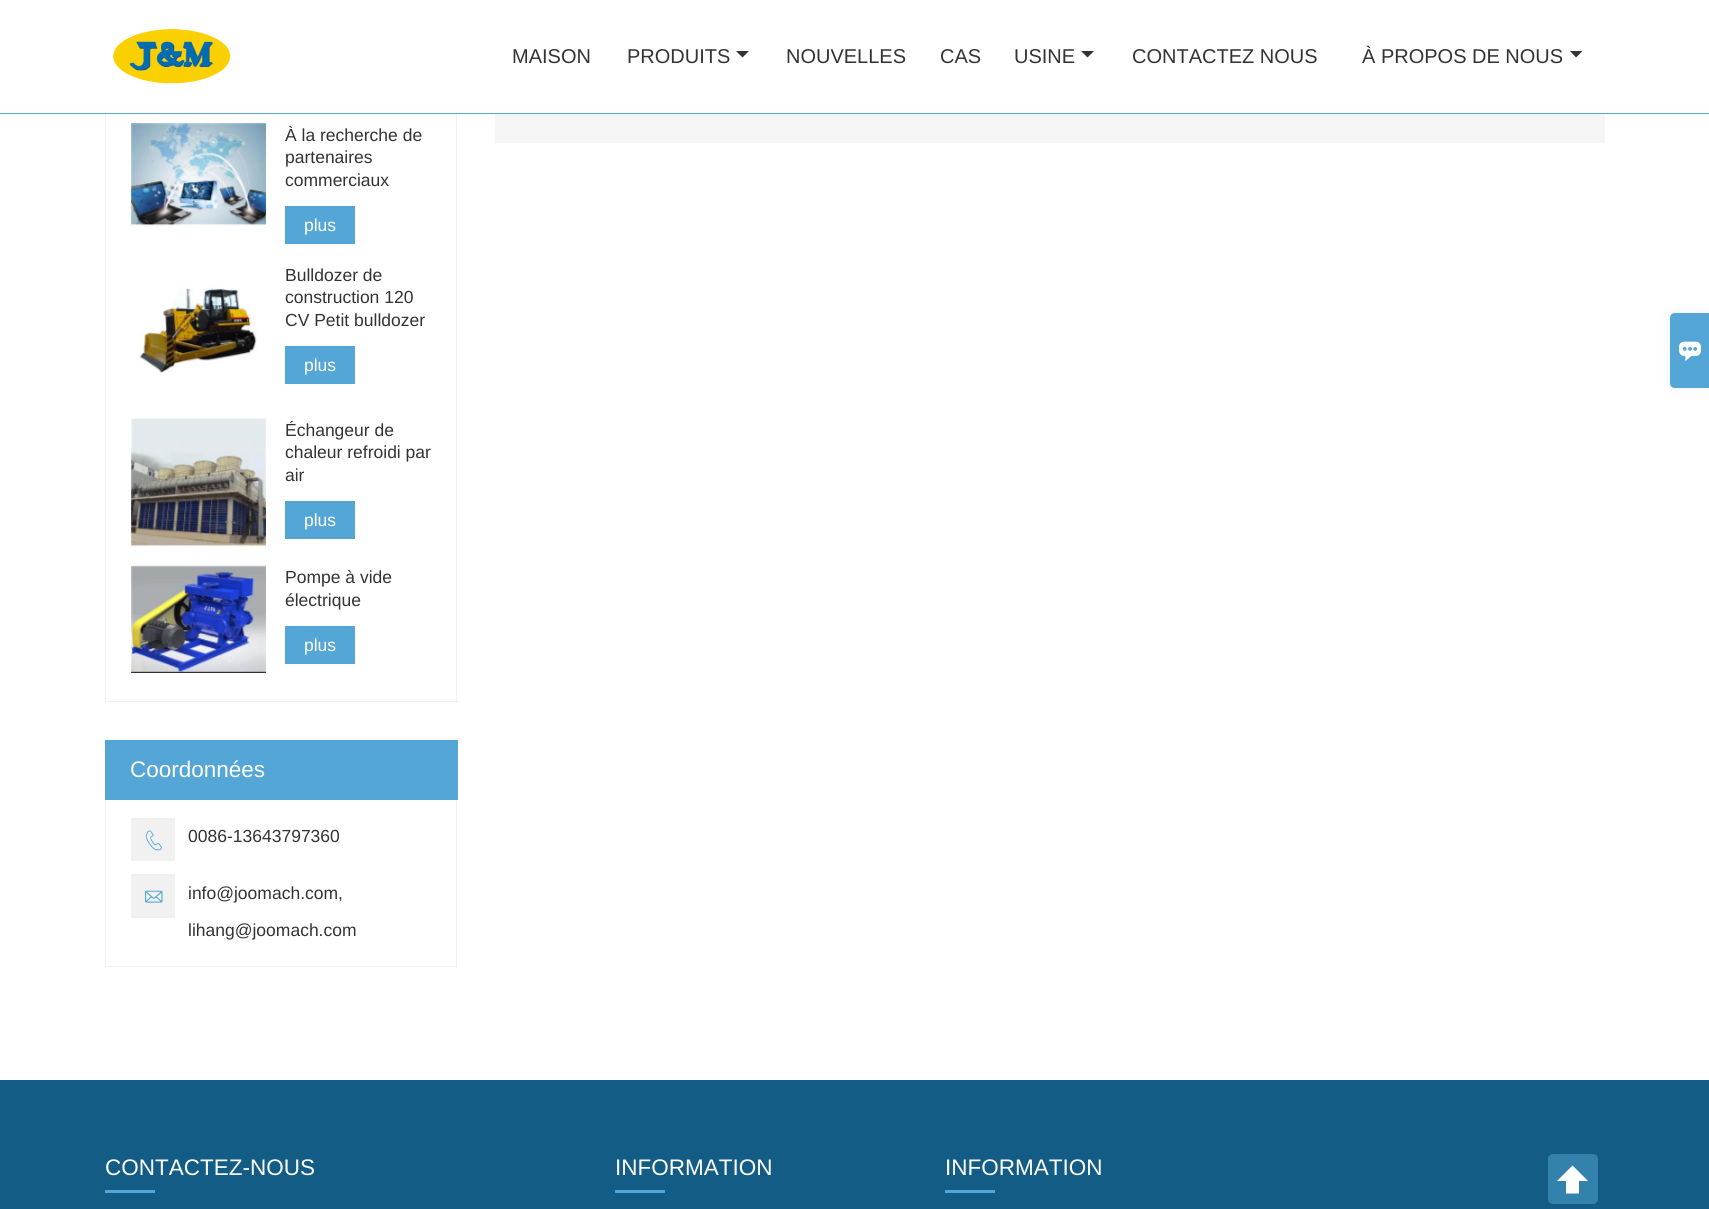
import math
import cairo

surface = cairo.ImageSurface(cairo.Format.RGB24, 1709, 1209)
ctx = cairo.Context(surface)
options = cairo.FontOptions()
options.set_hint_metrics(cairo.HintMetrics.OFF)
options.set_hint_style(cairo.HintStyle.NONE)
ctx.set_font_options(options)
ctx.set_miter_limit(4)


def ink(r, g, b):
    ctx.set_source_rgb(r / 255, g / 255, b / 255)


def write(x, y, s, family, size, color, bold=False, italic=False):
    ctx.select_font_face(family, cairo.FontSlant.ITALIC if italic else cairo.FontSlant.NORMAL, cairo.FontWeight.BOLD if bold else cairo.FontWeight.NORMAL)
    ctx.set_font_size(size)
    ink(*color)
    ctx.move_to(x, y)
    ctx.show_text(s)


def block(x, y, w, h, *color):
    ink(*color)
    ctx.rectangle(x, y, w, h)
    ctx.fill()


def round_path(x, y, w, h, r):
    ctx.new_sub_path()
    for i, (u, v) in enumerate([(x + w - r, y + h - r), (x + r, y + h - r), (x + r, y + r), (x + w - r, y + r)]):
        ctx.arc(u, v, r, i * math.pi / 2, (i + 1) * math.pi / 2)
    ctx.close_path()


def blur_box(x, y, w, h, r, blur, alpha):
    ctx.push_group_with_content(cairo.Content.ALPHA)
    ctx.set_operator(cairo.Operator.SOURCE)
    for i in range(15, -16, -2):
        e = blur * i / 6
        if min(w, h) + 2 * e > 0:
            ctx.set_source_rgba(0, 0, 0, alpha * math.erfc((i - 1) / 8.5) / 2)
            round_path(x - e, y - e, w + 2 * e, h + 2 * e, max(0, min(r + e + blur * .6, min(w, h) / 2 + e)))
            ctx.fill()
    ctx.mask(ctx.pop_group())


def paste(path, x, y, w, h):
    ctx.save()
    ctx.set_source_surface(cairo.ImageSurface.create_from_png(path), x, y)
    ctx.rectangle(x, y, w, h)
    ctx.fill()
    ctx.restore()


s1 = dict(family="Liberation Sans", size=20, color=(51, 51, 51))
s2 = dict(family="Liberation Sans", size=17.5, color=(51, 51, 51))
s3 = dict(family="Liberation Sans", size=17.5, color=(255, 255, 255))
s4 = dict(family="Liberation Sans", size=22.5, color=(255, 255, 255))

ink(255, 255, 255)
ctx.paint()
block(0, 113, 1709, 1, 83, 166, 213)
paste("pic1.png", 113, 29, 118, 55)
write(512, 63, "MAISON", **s1)
write(627, 63, "PRODUITS", **s1)
ctx.new_path()
ctx.move_to(736, 51)
ctx.line_to(749, 51)
ctx.line_to(742.5, 57.5)
ctx.close_path()
ctx.fill()
write(786, 63, "NOUVELLES", **s1)
write(940, 63, "CAS", **s1)
write(1014, 63, "USINE", **s1)
ctx.new_path()
ctx.move_to(1081, 51)
ctx.line_to(1094, 51)
ctx.line_to(1087.5, 57.5)
ctx.close_path()
ctx.fill()
write(1132, 63, "CONTACTEZ NOUS", **s1)
write(1362, 63, "À PROPOS DE NOUS", **s1)
ctx.new_path()
ctx.move_to(1570, 51)
ctx.line_to(1582.5, 51)
ctx.line_to(1576, 57.5)
ctx.close_path()
ctx.fill()
block(456, 114, 1, 589, 241, 241, 241)
block(105, 701, 353, 1, 241, 241, 241)
block(105, 114, 1, 589, 241, 241, 241)
paste("pic2.png", 131, 123, 135, 103)
write(285, 141, "À la recherche de", **s2)
write(285, 163, "partenaires", **s2)
write(285, 186, "commerciaux", **s2)
block(285, 206, 70, 38, 83, 166, 213)
write(304, 231, "plus", **s3)
paste("pic3.png", 139, 287, 118, 86)
write(285, 281, "Bulldozer de", **s2)
write(285, 303, "construction 120", **s2)
write(285, 326, "CV Petit bulldozer", **s2)
block(285, 346, 70, 38, 83, 166, 213)
write(304, 371, "plus", **s3)
paste("pic4.png", 131, 418, 135, 129)
write(285, 436, "Échangeur de", **s2)
write(285, 458, "chaleur refroidi par", **s2)
write(285, 481, "air", **s2)
block(285, 501, 70, 38, 83, 166, 213)
write(304, 526, "plus", **s3)
paste("pic5.png", 131, 565, 135, 108)
write(285, 583, "Pompe à vide", **s2)
write(285, 606, "électrique", **s2)
block(285, 626, 70, 38, 83, 166, 213)
write(304, 651, "plus", **s3)
block(105, 740, 353, 60, 83, 166, 213)
write(130, 777, "Coordonnées", **s4)
block(456, 800, 1, 168, 241, 241, 241)
block(105, 966, 353, 1, 241, 241, 241)
block(105, 800, 1, 168, 241, 241, 241)
block(131, 818, 44, 43, 241, 241, 241)
paste("pic6.png", 145, 830, 17, 21)
write(188, 842, "0086-13643797360", **s2)
block(131, 874, 44, 44, 241, 241, 241)
paste("pic7.png", 145, 890, 18, 13)
write(188, 899, "info@joomach.com,", **s2)
write(188, 936, "lihang@joomach.com", **s2)
block(495, 114, 1110, 29, 246, 246, 246)
block(0, 1080, 1709, 129, 19, 92, 133)
write(105, 1175, "CONTACTEZ-NOUS", **s4)
block(105, 1190, 50, 3, 83, 166, 213)
write(615, 1175, "INFORMATION", **s4)
block(615, 1190, 50, 3, 83, 166, 213)
write(945, 1175, "INFORMATION", **s4)
block(945, 1190, 50, 3, 83, 166, 213)
ink(234, 240, 246)
blur_box(1670, 313, 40, 75, 5, 5, 1)
ink(83, 166, 213)
ctx.new_path()
ctx.move_to(1675, 313)
ctx.line_to(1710, 313)
ctx.line_to(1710, 388)
ctx.line_to(1675, 388)
ctx.curve_to(1672, 388, 1670, 386, 1670, 383)
ctx.line_to(1670, 318)
ctx.curve_to(1670, 315, 1672, 313, 1675, 313)
ctx.close_path()
ctx.fill()
paste("pic8.png", 1679, 341, 22, 20)
ink(51, 129, 173)
round_path(1548, 1154, 50, 50, 5)
ctx.fill()
ink(255, 255, 255)
ctx.new_path()
ctx.move_to(1588, 1181)
ctx.line_to(1572.5, 1165.5)
ctx.line_to(1557, 1181)
ctx.line_to(1566, 1181)
ctx.line_to(1566, 1193.5)
ctx.line_to(1579, 1193.5)
ctx.line_to(1579, 1181)
ctx.close_path()
ctx.fill()
surface.write_to_png("screenshot.png")
